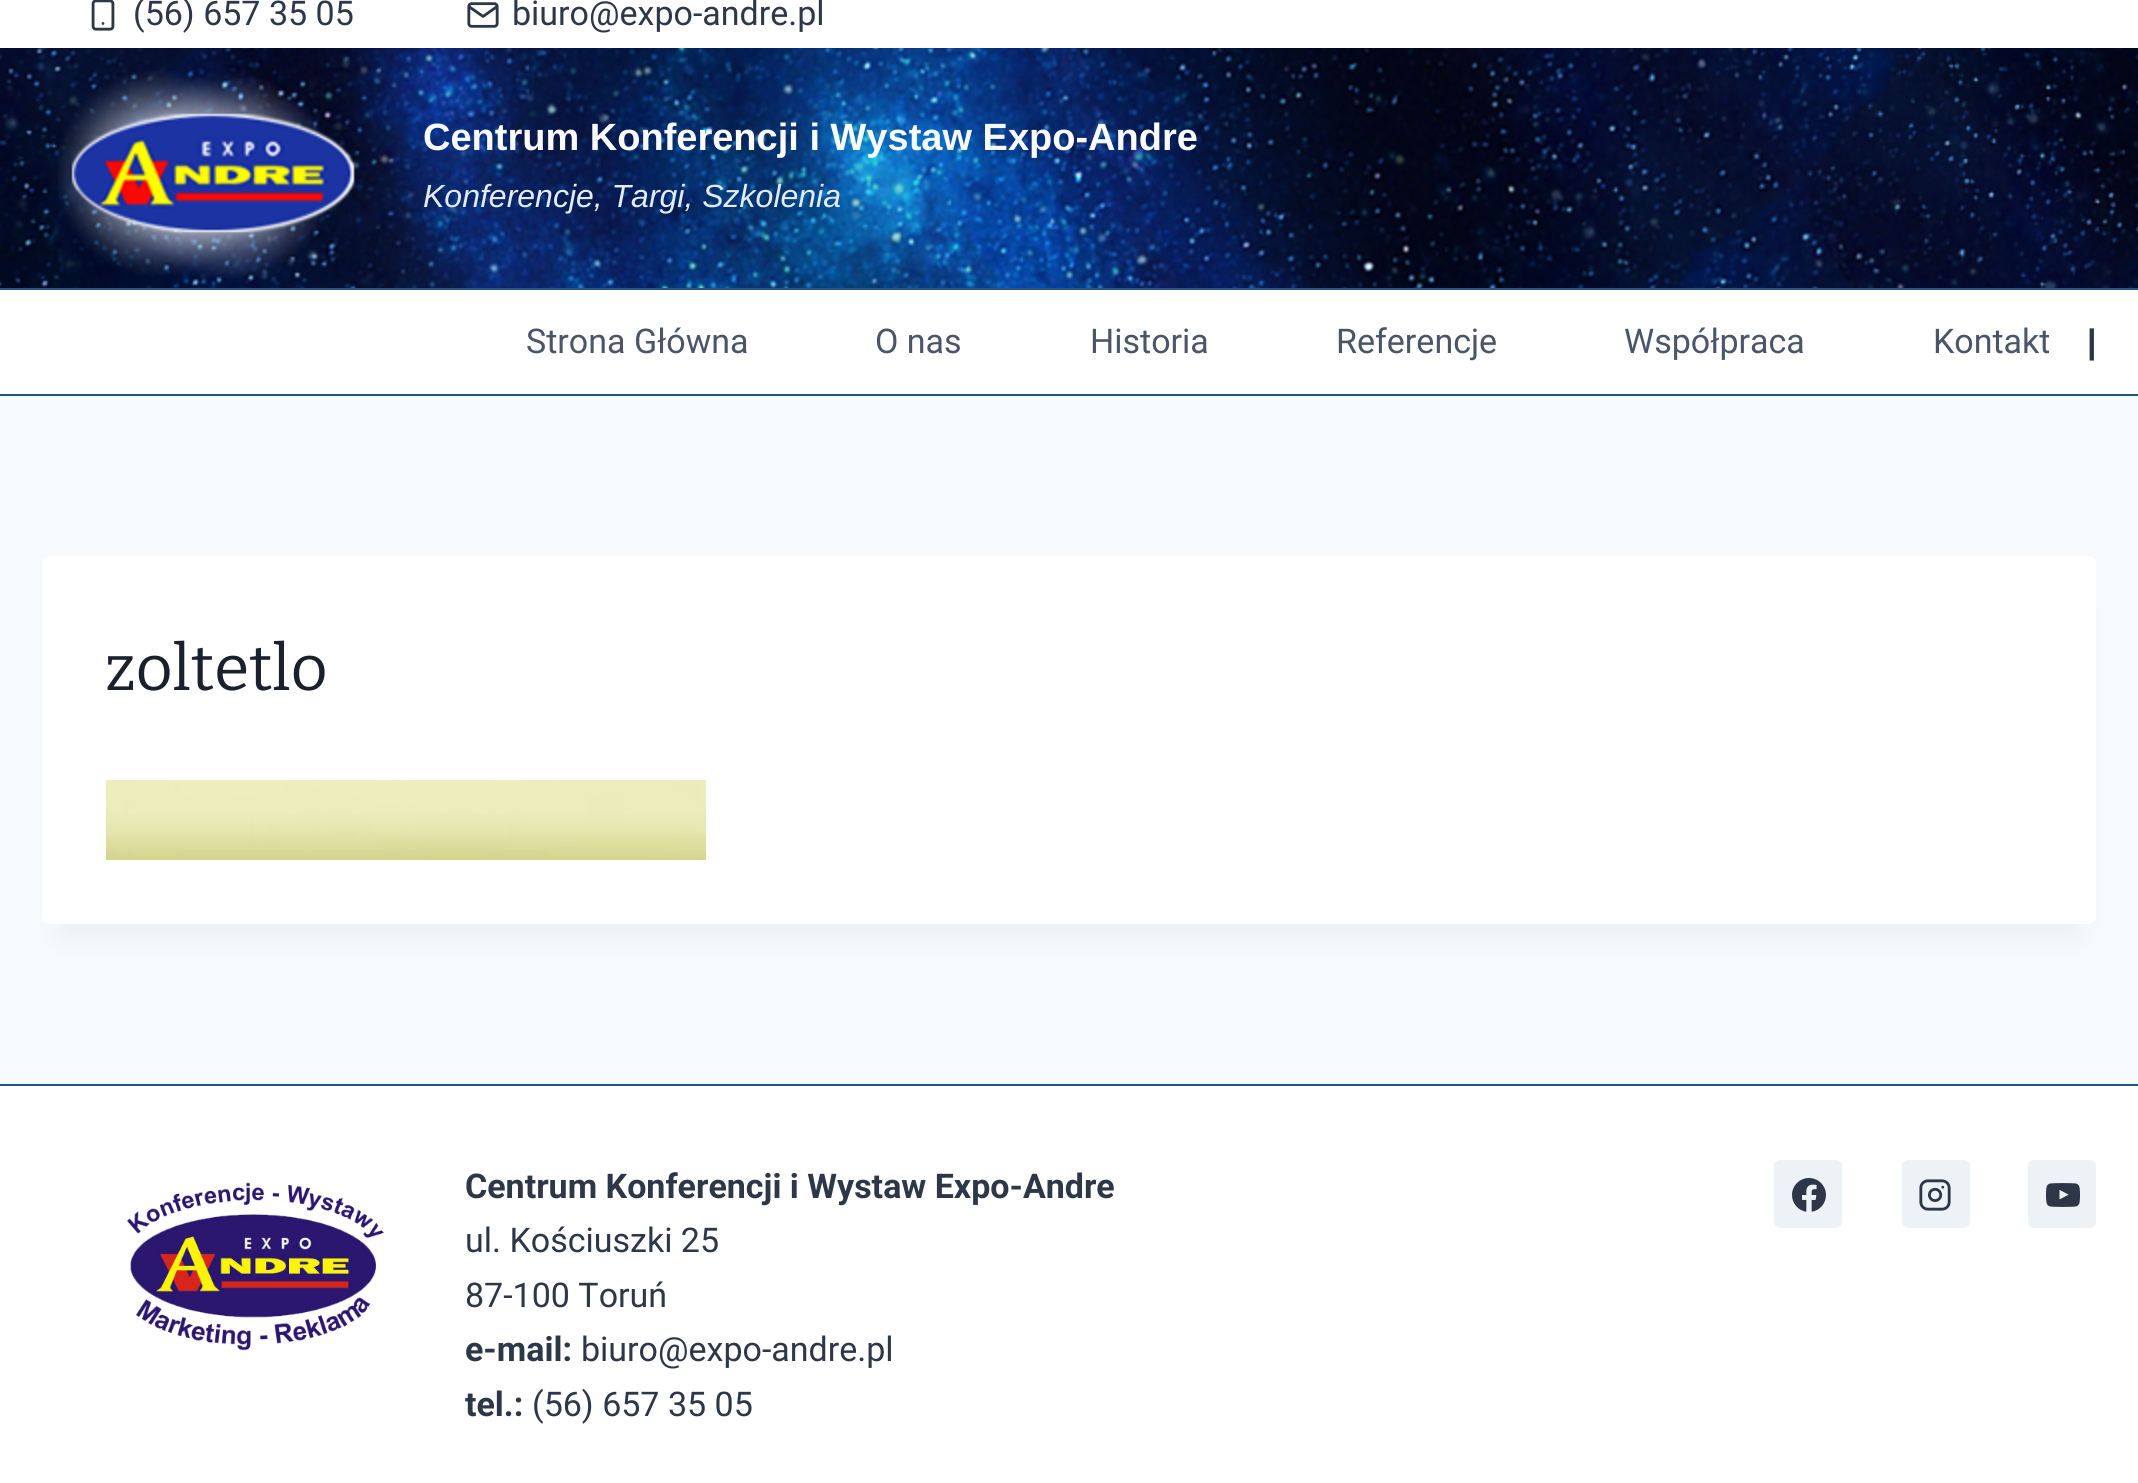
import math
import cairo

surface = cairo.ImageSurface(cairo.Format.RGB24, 2138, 1483)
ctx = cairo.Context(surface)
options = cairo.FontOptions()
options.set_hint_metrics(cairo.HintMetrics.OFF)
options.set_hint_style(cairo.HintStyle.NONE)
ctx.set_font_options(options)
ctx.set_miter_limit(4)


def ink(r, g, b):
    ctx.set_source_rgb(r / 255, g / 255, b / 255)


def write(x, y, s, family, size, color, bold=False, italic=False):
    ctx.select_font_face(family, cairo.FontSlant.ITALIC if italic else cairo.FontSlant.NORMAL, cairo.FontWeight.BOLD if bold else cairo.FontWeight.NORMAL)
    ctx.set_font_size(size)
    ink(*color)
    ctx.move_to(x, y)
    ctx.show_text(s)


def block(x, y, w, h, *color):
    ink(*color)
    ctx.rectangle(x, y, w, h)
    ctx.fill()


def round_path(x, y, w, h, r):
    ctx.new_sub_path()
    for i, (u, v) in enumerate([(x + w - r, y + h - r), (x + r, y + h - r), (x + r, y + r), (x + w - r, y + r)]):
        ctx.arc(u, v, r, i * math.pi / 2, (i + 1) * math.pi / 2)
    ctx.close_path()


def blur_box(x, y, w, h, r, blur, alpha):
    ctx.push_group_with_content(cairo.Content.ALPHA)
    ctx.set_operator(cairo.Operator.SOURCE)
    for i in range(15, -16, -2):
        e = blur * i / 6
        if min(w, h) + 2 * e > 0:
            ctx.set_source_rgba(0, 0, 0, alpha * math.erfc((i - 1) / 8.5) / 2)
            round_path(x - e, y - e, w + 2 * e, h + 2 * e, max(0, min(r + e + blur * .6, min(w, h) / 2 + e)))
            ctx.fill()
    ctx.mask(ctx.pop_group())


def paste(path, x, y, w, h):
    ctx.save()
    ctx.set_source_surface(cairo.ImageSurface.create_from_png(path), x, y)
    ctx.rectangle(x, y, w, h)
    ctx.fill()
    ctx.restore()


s1 = dict(family="Roboto", size=34, color=(45, 55, 72))
s2 = dict(family="Liberation Sans", size=38, color=(249, 250, 252), bold=True)
s3 = dict(family="Liberation Sans", size=32, color=(225, 237, 246), italic=True)
s4 = dict(family="Roboto", size=34, color=(74, 85, 104))
s5 = dict(family="Liberation Sans", size=34, color=(45, 55, 72), bold=True)
s6 = dict(family="Bitter", size=64, color=(26, 32, 44))
s7 = dict(family="Roboto", size=34, color=(45, 55, 72), bold=True)

ink(247, 250, 252)
ctx.paint()
block(0, 0, 2138, 394, 255, 255, 255)
paste("pic1.png", 91, 0, 24, 31)
write(133, 25, "(56) 657 35 05", **s1)
paste("pic2.png", 467, 2, 32, 26)
write(512, 25, "biuro@expo-andre.pl", **s1)
paste("pic3.png", 0, 48, 2138, 240)
paste("pic4.png", 58, 71, 297, 207)
write(423, 150, "Centrum Konferencji i Wystaw Expo-Andre", **s2)
write(423, 207, "Konferencje, Targi, Szkolenia", **s3)
block(0, 288, 2138, 2, 33, 83, 135)
block(0, 394, 2138, 2, 33, 83, 135)
write(526, 353, "Strona Główna", **s4)
write(875, 353, "O nas", **s4)
write(1090, 353, "Historia", **s4)
write(1336, 353, "Referencje", **s4)
write(1624, 353, "Współpraca", **s4)
write(1933, 353, "Kontakt", **s4)
write(2087, 353, "|", **s5)
ink(0, 0, 0)
blur_box(62, 606, 2014, 328, 0, 15, 0.05)
ink(255, 255, 255)
round_path(42, 556, 2054, 368, 8)
ctx.fill()
write(105, 690, "zoltetlo", **s6)
paste("pic5.png", 106, 780, 600, 80)
block(0, 1086, 2138, 397, 255, 255, 255)
block(0, 1084, 2138, 2, 33, 83, 135)
paste("pic6.png", 127, 1182, 257, 169)
write(465, 1198, "Centrum Konferencji i Wystaw Expo-Andre", **s7)
write(465, 1252, "ul. Kościuszki 25", **s1)
write(465, 1307, "87-100 Toruń", **s1)
write(465, 1361, "e-mail:", **s7)
write(581, 1361, "biuro@expo-andre.pl", **s1)
write(465, 1416, "tel.:", **s7)
write(532, 1416, "(56) 657 35 05", **s1)
ink(237, 242, 247)
round_path(1774, 1160, 68, 68, 6)
ctx.fill()
paste("pic7.png", 1792, 1178, 34, 34)
round_path(1902, 1160, 68, 68, 6)
ctx.fill()
paste("pic8.png", 1919, 1179, 32, 32)
round_path(2028, 1160, 68, 68, 6)
ctx.fill()
paste("pic9.png", 2046, 1183, 34, 24)
surface.write_to_png("screenshot.png")
